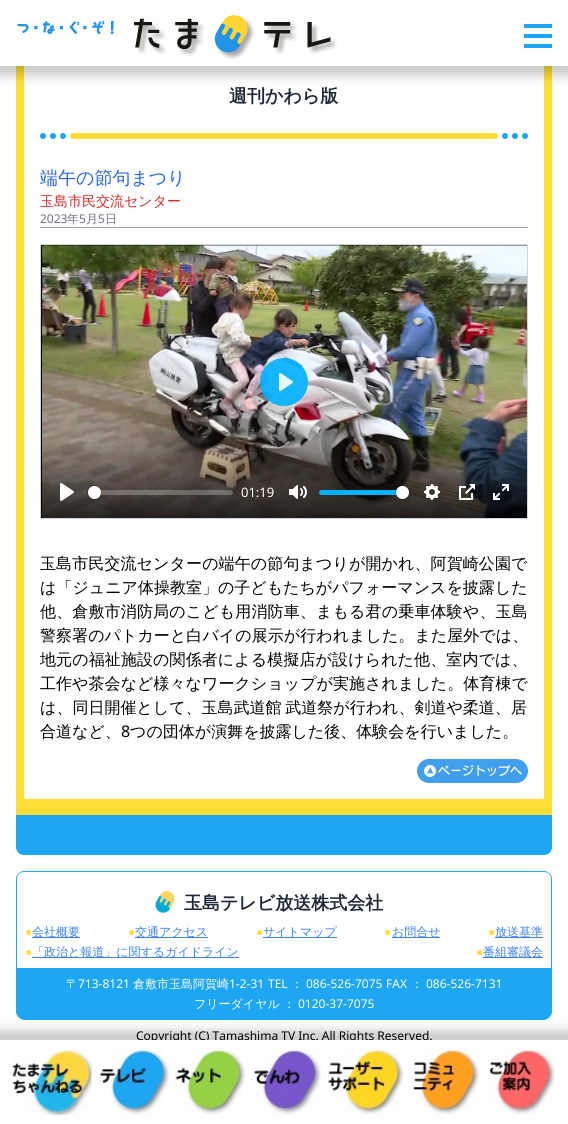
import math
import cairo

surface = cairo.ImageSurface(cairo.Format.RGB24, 568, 1124)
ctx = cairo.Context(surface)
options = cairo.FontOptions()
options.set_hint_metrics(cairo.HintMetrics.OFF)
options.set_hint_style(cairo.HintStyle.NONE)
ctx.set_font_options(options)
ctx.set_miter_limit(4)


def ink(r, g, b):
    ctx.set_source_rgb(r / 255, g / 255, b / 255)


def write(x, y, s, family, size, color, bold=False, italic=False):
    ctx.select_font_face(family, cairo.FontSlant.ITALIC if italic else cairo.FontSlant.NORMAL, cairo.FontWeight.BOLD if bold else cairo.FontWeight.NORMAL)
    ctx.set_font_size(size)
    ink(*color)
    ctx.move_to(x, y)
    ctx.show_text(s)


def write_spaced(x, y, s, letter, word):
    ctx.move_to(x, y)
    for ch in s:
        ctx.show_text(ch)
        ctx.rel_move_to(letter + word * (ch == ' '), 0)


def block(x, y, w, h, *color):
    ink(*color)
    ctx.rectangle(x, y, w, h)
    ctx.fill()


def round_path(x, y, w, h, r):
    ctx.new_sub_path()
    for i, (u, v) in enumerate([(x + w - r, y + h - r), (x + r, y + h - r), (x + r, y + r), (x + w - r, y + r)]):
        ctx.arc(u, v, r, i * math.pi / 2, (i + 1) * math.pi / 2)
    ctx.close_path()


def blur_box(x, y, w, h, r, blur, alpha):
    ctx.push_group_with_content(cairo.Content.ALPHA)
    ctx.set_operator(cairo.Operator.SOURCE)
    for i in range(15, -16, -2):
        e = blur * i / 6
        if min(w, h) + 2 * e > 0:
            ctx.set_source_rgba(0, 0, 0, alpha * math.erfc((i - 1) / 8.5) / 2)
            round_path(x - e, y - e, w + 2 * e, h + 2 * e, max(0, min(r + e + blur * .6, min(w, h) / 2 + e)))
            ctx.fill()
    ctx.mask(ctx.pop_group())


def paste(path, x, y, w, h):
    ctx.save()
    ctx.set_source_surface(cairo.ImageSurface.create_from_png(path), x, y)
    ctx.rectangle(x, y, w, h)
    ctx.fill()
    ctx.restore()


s1 = dict(family="Noto Sans", size=12, color=(0, 0, 0))
s2 = dict(family="WenQuanYi Zen Hei", size=18, color=(31, 41, 55), bold=True)
s3 = dict(family="WenQuanYi Zen Hei Medium", size=18, color=(37, 99, 235))
s4 = dict(family="WenQuanYi Zen Hei Medium", size=14, color=(220, 38, 38))
s5 = dict(family="Noto Sans", size=12, color=(107, 114, 128))
s6 = dict(family="WenQuanYi Zen Hei Medium", size=12, color=(107, 114, 128))
s7 = dict(family="Noto Sans", size=13, color=(255, 255, 255))
s8 = dict(family="WenQuanYi Zen Hei Medium", size=16, color=(0, 0, 0))
s9 = dict(family="Noto Sans", size=16, color=(0, 0, 0))
s10 = dict(family="Liberation Sans", size=12, color=(255, 222, 55))
s11 = dict(family="WenQuanYi Zen Hei Medium", size=12, color=(59, 130, 246))
s12 = dict(family="WenQuanYi Zen Hei Medium", size=12, color=(255, 255, 255))
s13 = dict(family="Noto Sans", size=12, color=(255, 255, 255))

ink(255, 255, 255)
ctx.paint()
block(16, 66, 536, 749, 255, 222, 55)
block(24, 66, 520, 733, 255, 255, 255)
ink(0, 0, 0)
blur_box(-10, -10, 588, 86, 0, 5, 0.2)
block(0, 0, 568, 66, 255, 255, 255)
paste("pic1.png", 17, 15, 321, 45)
block(524, 24, 28, 4, 29, 166, 242)
block(524, 34, 28, 4, 29, 166, 242)
block(524, 44, 28, 4, 29, 166, 242)
ctx.set_fill_rule(cairo.FillRule.EVEN_ODD)
ctx.new_path()
ctx.move_to(24, 871)
ctx.line_to(544, 871)
ctx.curve_to(548, 871, 552, 875, 552, 879)
ctx.line_to(552, 1012)
ctx.curve_to(552, 1016, 548, 1020, 544, 1020)
ctx.line_to(24, 1020)
ctx.curve_to(20, 1020, 16, 1016, 16, 1012)
ctx.line_to(16, 879)
ctx.curve_to(16, 875, 20, 871, 24, 871)
ctx.close_path()
ctx.move_to(24, 872)
ctx.line_to(544, 872)
ctx.curve_to(548, 872, 551, 875, 551, 879)
ctx.line_to(551, 1012)
ctx.curve_to(551, 1016, 548, 1020, 544, 1020)
ctx.line_to(24, 1020)
ctx.curve_to(20, 1020, 17, 1016, 17, 1012)
ctx.line_to(17, 879)
ctx.curve_to(17, 875, 20, 872, 24, 872)
ctx.close_path()
ctx.fill()
ctx.new_path()
ctx.move_to(17, 968)
ctx.line_to(551, 968)
ctx.line_to(551, 1012)
ctx.curve_to(551, 1016.5, 547.5, 1020, 543, 1020)
ctx.line_to(25, 1020)
ctx.curve_to(20.5, 1020, 17, 1016.5, 17, 1012)
ctx.close_path()
ctx.fill()
ink(0, 0, 0)
blur_box(-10, 1030, 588, 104, 0, 5, 0.2)
write(136, 1040, "Copyright (C) Tamashima TV Inc. All Rights Reserved.", **s1)
block(0, 1040, 568, 84, 255, 255, 255)
paste("pic2.png", 12, 1048, 80, 67)
paste("pic3.png", 99, 1048, 71, 68)
paste("pic4.png", 175, 1048, 71, 67)
paste("pic5.png", 254, 1048, 67, 68)
paste("pic6.png", 328, 1048, 76, 68)
paste("pic7.png", 412, 1048, 68, 67)
paste("pic8.png", 489, 1048, 66, 68)
write(229, 102, "週刊かわら版", **s2)
ink(29, 166, 242)
ctx.new_path()
ctx.arc(43, 136, 3, 0, 2 * math.pi)
ctx.fill()
ctx.arc(53, 136, 3, 0, 2 * math.pi)
ctx.fill()
ctx.arc(63, 136, 3, 0, 2 * math.pi)
ctx.fill()
ink(255, 222, 55)
round_path(70, 133, 428, 6, 3)
ctx.fill()
ink(29, 166, 242)
ctx.arc(505, 136, 3, 0, 2 * math.pi)
ctx.fill()
ctx.arc(515, 136, 3, 0, 2 * math.pi)
ctx.fill()
ctx.arc(525, 136, 3, 0, 2 * math.pi)
ctx.fill()
write(40, 184, "端午の節句まつり", **s3)
block(40, 227, 488, 1, 156, 163, 175)
write(40, 206, "玉島市民交流センター", **s4)
write(40, 223, "2023", **s5)
write(67, 223, "年", **s6)
write(79, 223, "5", **s5)
write(86, 223, "月", **s6)
write(98, 223, "5", **s5)
write(105, 223, "日", **s6)
ctx.rectangle(40.5, 244.5, 487, 274)
ink(209, 213, 219)
ctx.set_line_width(1)
ctx.stroke()
block(41, 245, 1, 273, 0, 0, 0)
paste("pic9.png", 42, 245, 485, 273)
ctx.set_source_rgba(0, 0.698, 1, 0.9)
ctx.arc(284, 382, 24, 0, 2 * math.pi)
ctx.fill()
paste("pic10.png", 279, 373, 14, 18)
paste("pic11.png", 60, 483, 14, 18)
ctx.set_source_rgba(1, 1, 1, 0.25)
round_path(88, 490, 145, 5, 2.5)
ctx.fill()
ctx.arc(94.5, 492.5, 7, 0, 2 * math.pi)
ctx.set_source_rgba(0.137, 0.157, 0.184, 0.2)
ctx.stroke()
ink(35, 40, 47)
blur_box(88, 487, 13, 13, 6.5, 0.5, 0.15)
ink(255, 255, 255)
ctx.arc(94.5, 492.5, 6.5, 0, 2 * math.pi)
ctx.fill()
write(241, 497, "01:19", **s7)
paste("pic12.png", 289, 485, 18, 14)
ink(0, 178, 255)
round_path(319, 490, 90, 5, 2.5)
ctx.fill()
ctx.arc(402.5, 492.5, 7, 0, 2 * math.pi)
ctx.set_source_rgba(0.137, 0.157, 0.184, 0.2)
ctx.stroke()
ink(35, 40, 47)
blur_box(396, 487, 13, 13, 6.5, 0.5, 0.15)
ink(255, 255, 255)
ctx.arc(402.5, 492.5, 6.5, 0, 2 * math.pi)
ctx.fill()
paste("pic13.png", 424, 484, 16, 16)
paste("pic14.png", 459, 484, 16, 16)
paste("pic15.png", 493, 484, 16, 16)
ctx.select_font_face("WenQuanYi Zen Hei Medium")
ctx.set_font_size(16)
ink(0, 0, 0)
write_spaced(40, 569, "玉島市民交流センターの端午の節句まつりが開かれ、阿賀崎公園で", 0.1, 0)
write(40, 593, "は「ジュニア体操教室」の子どもたちがパフォーマンスを披露した", **s8)
write_spaced(40, 617, "他、倉敷市消防局のこども用消防車、まもる君の乗車体験や、玉島", 0.15, 0)
write_spaced(40, 641, "警察署のパトカーと白バイの展示が行われました。また屋外では、", 0.05, 0)
write_spaced(40, 665, "地元の福祉施設の関係者による模擬店が設けられた他、室内では、", 0.1, 0)
write_spaced(40, 689, "工作や茶会など様々なワークショップが実施されました。体育棟で", 0.05, 0)
write_spaced(40, 713, "は、同日開催として、玉島武道館 武道祭が行われ、剣道や柔道、居", 0, -1)
write(40, 737, "合道など、", **s8)
write(121, 737, "8", **s9)
write(130, 737, "つの団体が演舞を披露した後、体験会を行いました。", **s8)
paste("pic16.png", 417, 759, 111, 24)
ink(29, 166, 242)
ctx.new_path()
ctx.move_to(16, 815)
ctx.line_to(552, 815)
ctx.line_to(552, 847)
ctx.curve_to(552, 851.5, 548.5, 855, 544, 855)
ctx.line_to(24, 855)
ctx.curve_to(19.5, 855, 16, 851.5, 16, 847)
ctx.close_path()
ctx.fill()
paste("pic17.png", 155, 891, 20, 22)
write(184, 909, "玉島テレビ放送株式会社", **s2)
write(25, 936, "●", **s10)
block(32, 937, 48, 1, 59, 130, 246)
write(32, 936, "会社概要", **s11)
write(128, 936, "●", **s10)
block(135, 937, 73, 1, 59, 130, 246)
write(135, 936, "交通アクセス", **s11)
write(256, 936, "●", **s10)
block(263, 937, 74, 1, 59, 130, 246)
write(263, 936, "サイトマップ", **s11)
write(384, 936, "●", **s10)
block(392, 937, 48, 1, 59, 130, 246)
write(392, 936, "お問合せ", **s11)
write(488, 936, "●", **s10)
block(495, 937, 48, 1, 59, 130, 246)
write(495, 936, "放送基準", **s11)
write(25, 956, "●", **s10)
block(32, 957, 207, 1, 59, 130, 246)
write(32, 956, "「政治と報道」に関するガイドライン", **s11)
write(476, 956, "●", **s10)
block(483, 957, 60, 1, 59, 130, 246)
write(483, 956, "番組審議会", **s11)
write(66, 988, "〒", **s12)
write(78, 988, "713-8121", **s13)
write(133, 988, "倉敷市玉島阿賀崎", **s12)
write(229, 988, "1-2-31", **s13)
write(268, 988, "TEL", **s13)
write(291, 988, "：", **s12)
write(306, 988, "086-526-7075", **s13)
write(386, 988, "FAX", **s13)
write(411, 988, "：", **s12)
write(426, 988, "086-526-7131", **s13)
write(194, 1008, "フリーダイヤル ：", **s12)
write(298, 1008, "0120-37-7075", **s13)
surface.write_to_png("screenshot.png")
